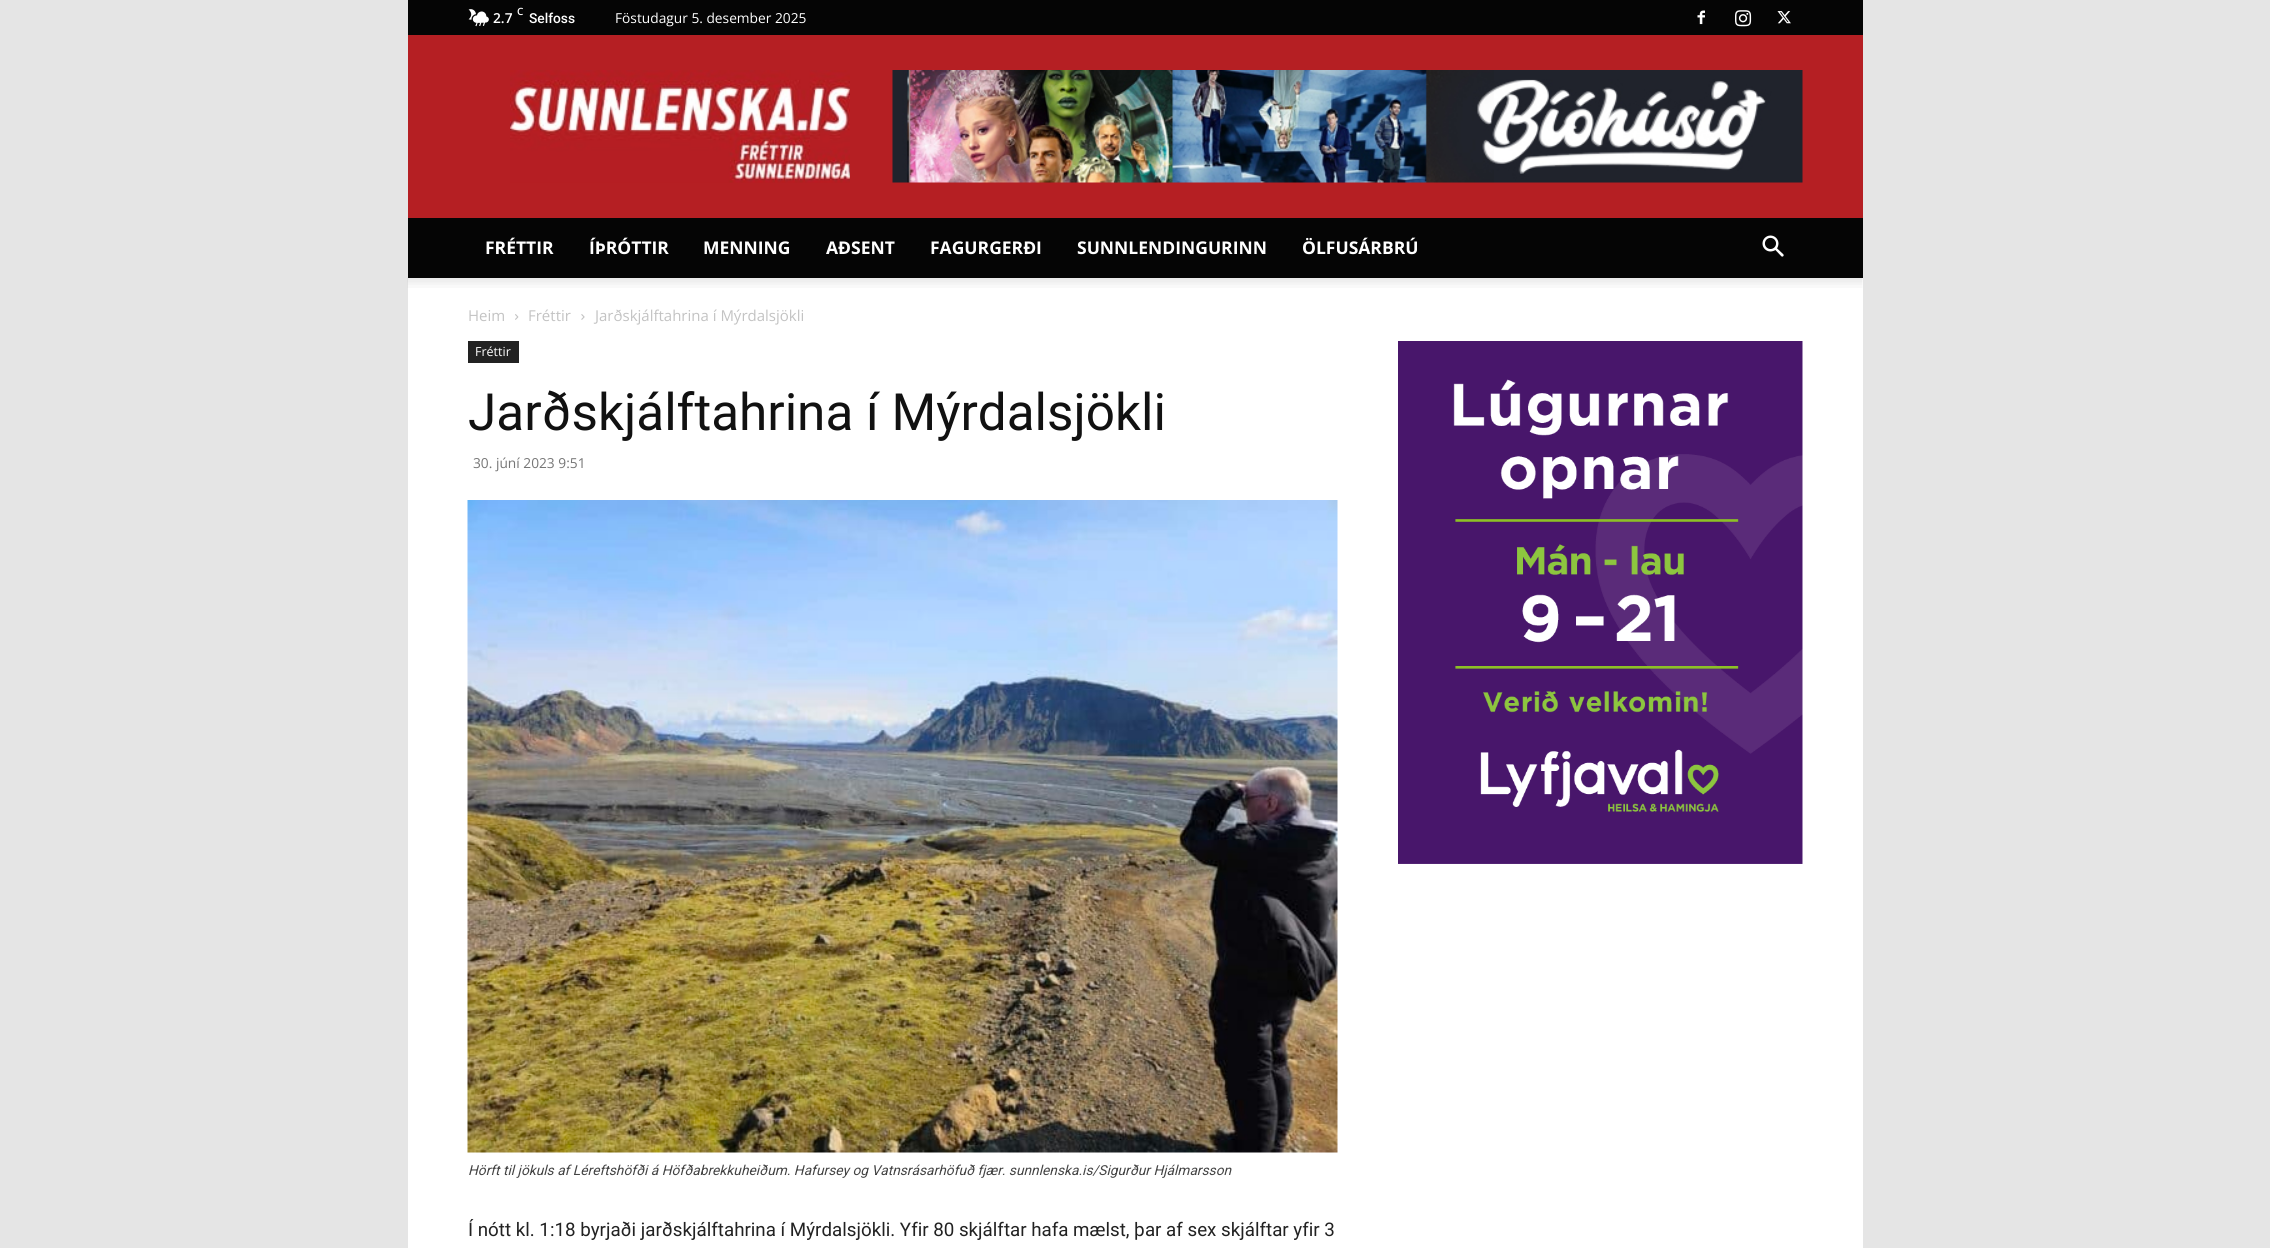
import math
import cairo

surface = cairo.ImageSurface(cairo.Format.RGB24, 2270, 1248)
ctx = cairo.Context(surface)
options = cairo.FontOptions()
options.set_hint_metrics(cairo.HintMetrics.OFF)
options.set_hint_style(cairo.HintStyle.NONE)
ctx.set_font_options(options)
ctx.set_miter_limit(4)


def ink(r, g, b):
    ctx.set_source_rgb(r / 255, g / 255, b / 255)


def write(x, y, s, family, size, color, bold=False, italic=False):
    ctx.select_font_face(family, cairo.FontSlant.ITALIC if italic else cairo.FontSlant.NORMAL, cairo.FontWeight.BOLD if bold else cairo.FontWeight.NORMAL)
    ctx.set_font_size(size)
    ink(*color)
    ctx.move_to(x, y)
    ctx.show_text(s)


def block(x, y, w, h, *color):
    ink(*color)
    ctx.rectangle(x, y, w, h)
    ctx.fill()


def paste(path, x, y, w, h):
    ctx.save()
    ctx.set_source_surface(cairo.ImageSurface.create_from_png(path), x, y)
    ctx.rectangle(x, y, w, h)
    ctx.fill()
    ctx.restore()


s1 = dict(family="Open Sans SemiBold", size=10, color=(255, 255, 255))
s2 = dict(family="Open Sans SemiBold", size=13.75, color=(255, 255, 255))
s3 = dict(family="Roboto Medium", size=13.75, color=(255, 255, 255))
s4 = dict(family="Open Sans", size=13.75, color=(255, 255, 255))
s5 = dict(family="Open Sans", size=17.5, color=(255, 255, 255), bold=True)
s6 = dict(family="Open Sans", size=15, color=(195, 195, 195))
s7 = dict(family="Open Sans", size=12.5, color=(255, 255, 255))
s8 = dict(family="Roboto", size=51.25, color=(17, 17, 17))
s9 = dict(family="Open Sans", size=13.75, color=(118, 118, 118))
s10 = dict(family="Roboto", size=13.75, color=(68, 68, 68), italic=True)
s11 = dict(family="Roboto", size=18.75, color=(34, 34, 34))

ink(229, 229, 229)
ctx.paint()
block(408, 0, 1455, 35, 5, 5, 5)
paste("pic1.png", 468, 9, 21, 18)
write(517, 15, "C", **s1)
write(493, 23, "2.7", **s2)
write(529, 23, "Selfoss", **s3)
write(615, 23, "Föstudagur 5. desember 2025", **s4)
paste("pic2.png", 1697, 10, 8, 15)
paste("pic3.png", 1735, 10, 17, 17)
paste("pic4.png", 1777, 11, 14, 13)
block(408, 35, 1455, 183, 181, 31, 35)
paste("pic5.png", 510, 70, 340, 113)
paste("pic6.png", 892, 70, 911, 113)
block(408, 218, 1455, 60, 5, 5, 5)
write(485, 254, "FRÉTTIR", **s5)
write(589, 254, "ÍÞRÓTTIR", **s5)
write(703, 254, "MENNING", **s5)
write(826, 254, "AÐSENT", **s5)
write(930, 254, "FAGURGERÐI", **s5)
write(1077, 254, "SUNNLENDINGURINN", **s5)
write(1302, 254, "ÖLFUSÁRBRÚ", **s5)
paste("pic7.png", 1762, 235, 22, 22)
block(408, 278, 1455, 970, 255, 255, 255)
paste("pic8.png", 407, 277, 1456, 11)
write(468, 321, "Heim", **s6)
paste("pic9.png", 515, 314, 4, 6)
write(528, 321, "Fréttir", **s6)
paste("pic10.png", 581, 314, 4, 6)
write(595, 321, "Jarðskjálftahrina í Mýrdalsjökli", **s6)
block(468, 341, 51, 22, 34, 34, 34)
write(475, 356, "Fréttir", **s7)
write(468, 430, "Jarðskjálftahrina í Mýrdalsjökli", **s8)
write(473, 468, "30. júní 2023 9:51", **s9)
paste("pic11.png", 467, 500, 871, 653)
write(468, 1175, "Hörft til jökuls af Léreftshöfði á Höfðabrekkuheiðum. Hafursey og Vatnsrásarhöfuð fjær. sunnlenska.is/Sigurður Hjálmarsson", **s10)
write(468, 1236, "Í nótt kl. 1:18 byrjaði jarðskjálftahrina í Mýrdalsjökli. Yfir 80 skjálftar hafa mælst, þar af sex skjálftar yfir 3", **s11)
paste("pic12.png", 1398, 341, 405, 523)
surface.write_to_png("screenshot.png")
